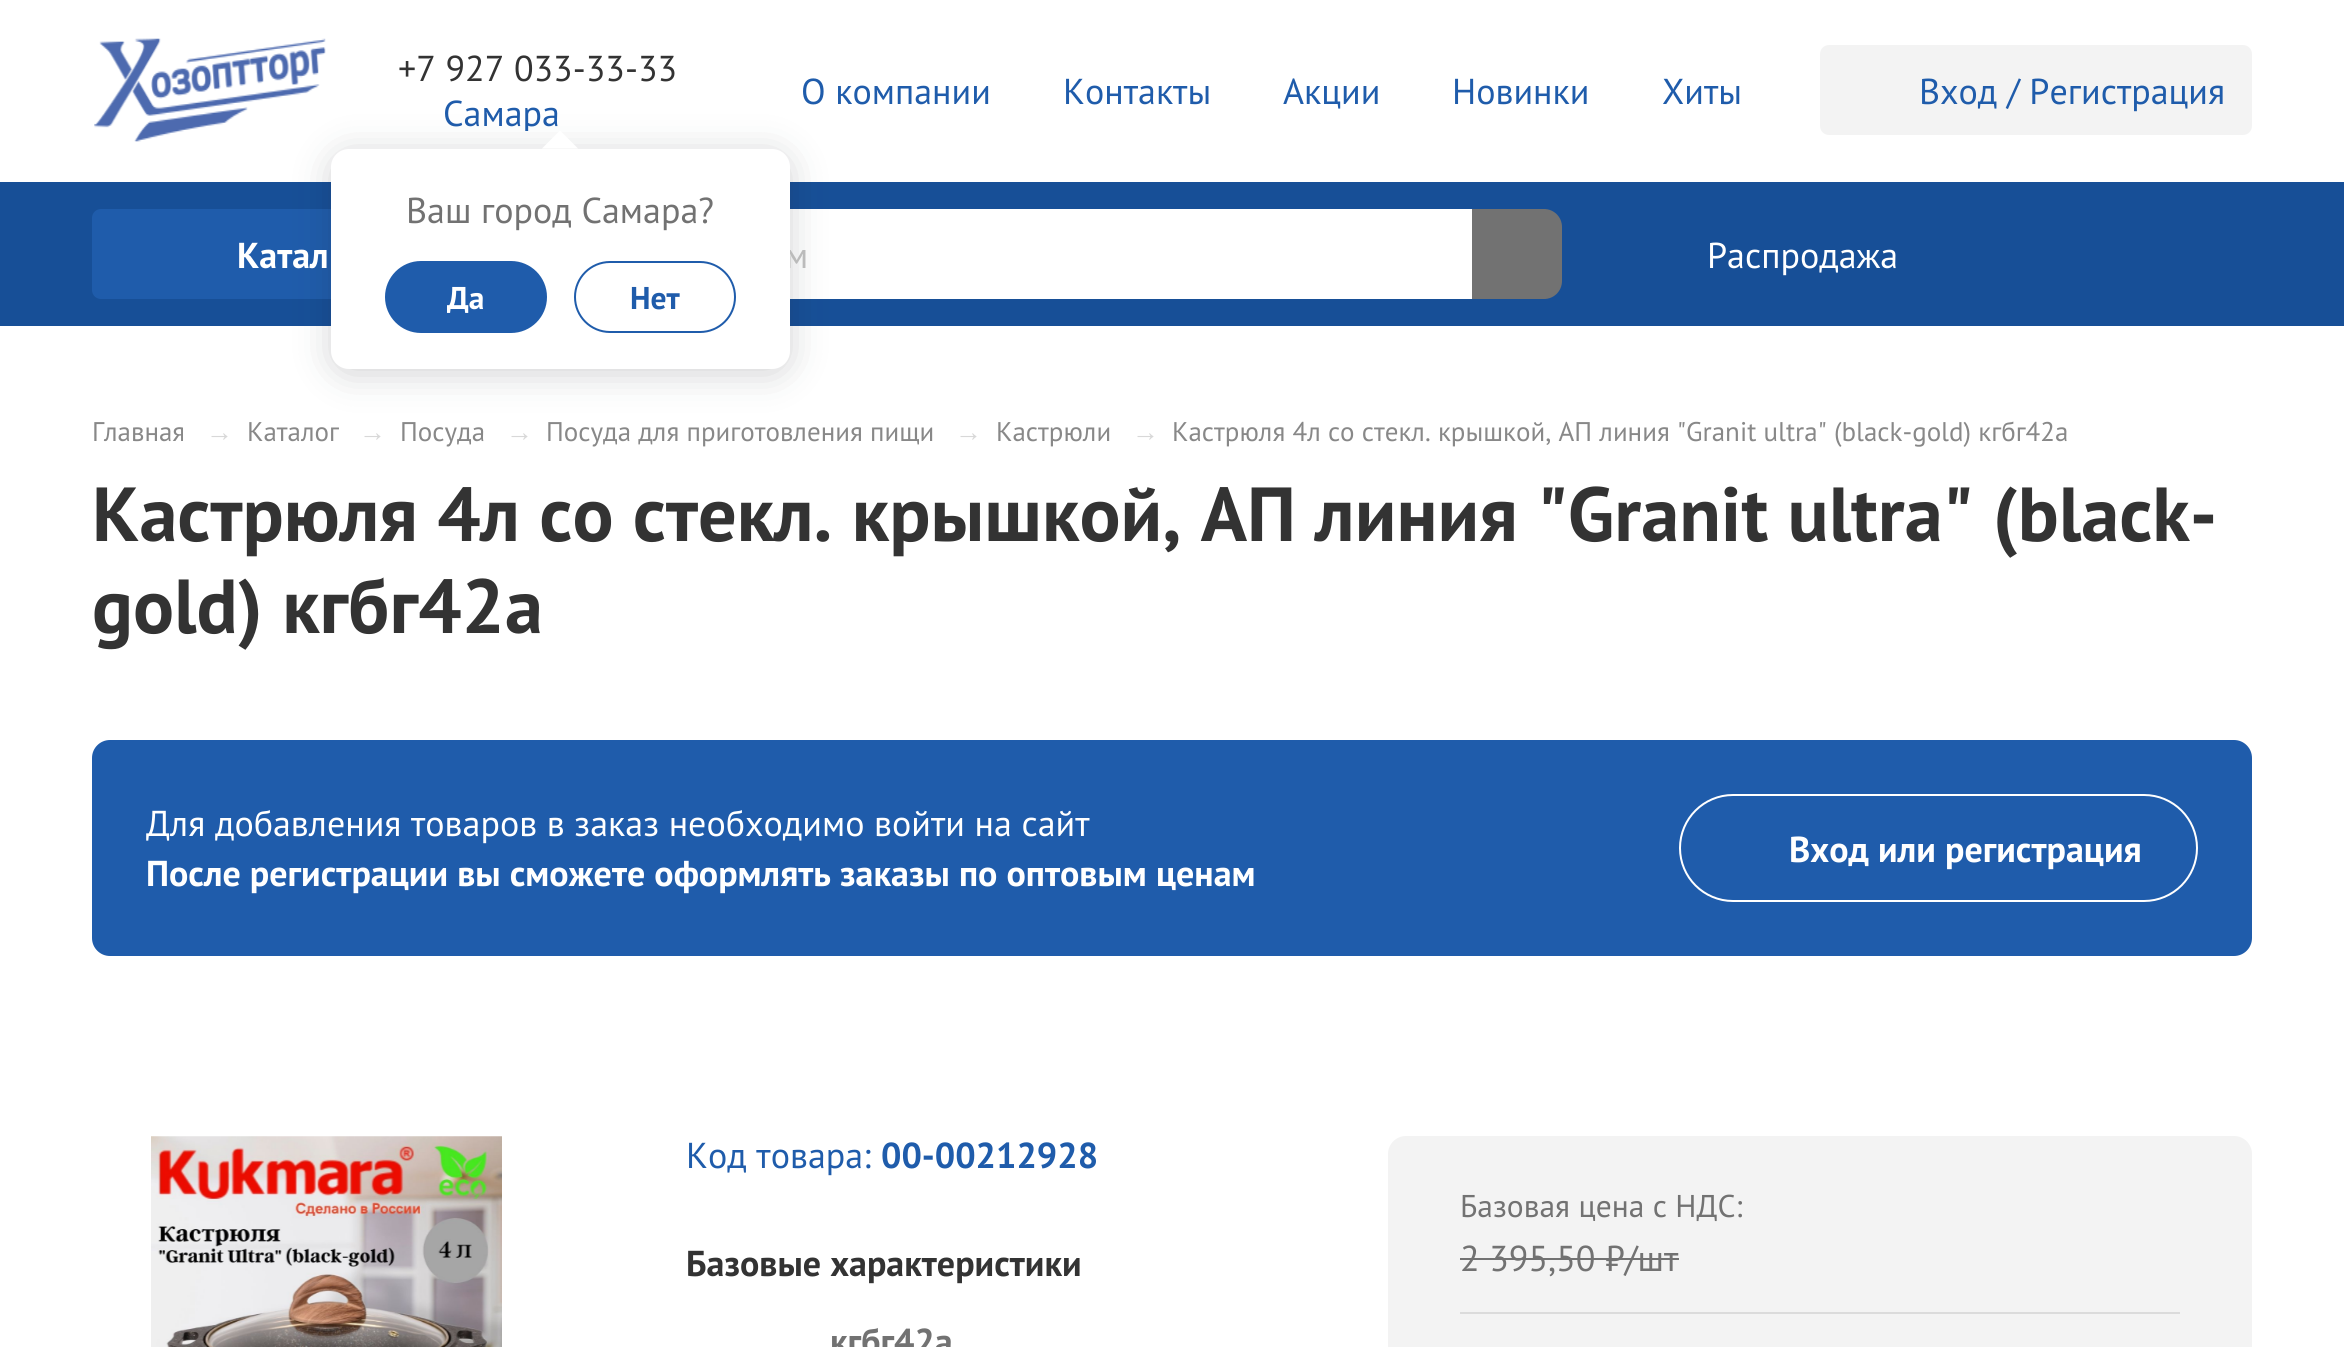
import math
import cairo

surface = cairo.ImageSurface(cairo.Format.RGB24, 2344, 1347)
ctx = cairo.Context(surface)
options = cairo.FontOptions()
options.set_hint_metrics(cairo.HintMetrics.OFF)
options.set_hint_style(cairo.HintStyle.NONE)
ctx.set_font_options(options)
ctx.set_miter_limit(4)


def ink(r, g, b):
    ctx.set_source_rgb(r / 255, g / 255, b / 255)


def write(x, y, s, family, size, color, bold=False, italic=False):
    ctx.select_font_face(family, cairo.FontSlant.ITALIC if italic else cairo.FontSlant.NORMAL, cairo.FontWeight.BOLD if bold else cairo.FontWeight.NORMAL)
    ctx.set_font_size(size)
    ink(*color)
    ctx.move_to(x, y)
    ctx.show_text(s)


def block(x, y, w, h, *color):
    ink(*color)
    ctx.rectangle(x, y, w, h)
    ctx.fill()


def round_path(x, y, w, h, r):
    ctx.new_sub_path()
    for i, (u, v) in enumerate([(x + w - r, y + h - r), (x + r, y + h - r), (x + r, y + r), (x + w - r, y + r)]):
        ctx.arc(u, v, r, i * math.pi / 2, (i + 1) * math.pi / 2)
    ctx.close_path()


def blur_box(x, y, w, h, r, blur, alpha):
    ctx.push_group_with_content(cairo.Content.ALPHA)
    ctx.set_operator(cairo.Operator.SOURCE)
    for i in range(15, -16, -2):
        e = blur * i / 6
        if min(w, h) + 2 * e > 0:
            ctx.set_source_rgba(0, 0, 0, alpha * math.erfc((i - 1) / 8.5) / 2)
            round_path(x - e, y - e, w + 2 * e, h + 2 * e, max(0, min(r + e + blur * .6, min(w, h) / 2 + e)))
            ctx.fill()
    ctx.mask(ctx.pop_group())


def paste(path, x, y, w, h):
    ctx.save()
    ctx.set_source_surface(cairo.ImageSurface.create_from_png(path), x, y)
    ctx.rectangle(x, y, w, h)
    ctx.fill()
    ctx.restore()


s1 = dict(family="PT Sans", size=36, color=(51, 51, 51))
s2 = dict(family="PT Sans", size=36, color=(31, 92, 171))
s3 = dict(family="PT Sans", size=36, color=(187, 187, 187))
s4 = dict(family="PT Sans", size=36, color=(114, 114, 114))
s5 = dict(family="PT Sans", size=31.5, color=(255, 255, 255), bold=True)
s6 = dict(family="PT Sans", size=31.5, color=(31, 92, 171), bold=True)
s7 = dict(family="PT Sans", size=36, color=(255, 255, 255), bold=True)
s8 = dict(family="PT Sans", size=36, color=(255, 255, 255))
s9 = dict(family="PT Sans", size=27, color=(136, 136, 136))
s10 = dict(family="Liberation Sans", size=27, color=(216, 216, 216))
s11 = dict(family="PT Sans", size=76.5, color=(51, 51, 51), bold=True)
s12 = dict(family="PT Sans", size=36, color=(31, 92, 171), bold=True)
s13 = dict(family="PT Sans", size=36, color=(51, 51, 51), bold=True)
s14 = dict(family="PT Sans", size=36, color=(114, 114, 114), bold=True)
s15 = dict(family="PT Sans", size=31.5, color=(114, 114, 114))

ink(255, 255, 255)
ctx.paint()
paste("pic1.png", 94, 38, 232, 104)
write(398, 81, "+7 927 033-33-33", **s1)
ctx.save()
ctx.rectangle(398, 95, 324, 36)
ctx.clip()
write(443, 126, "Самара", **s2)
ctx.restore()
block(0, 182, 2344, 144, 23, 79, 151)
ink(31, 92, 171)
round_path(93, 210, 358, 88, 8)
ctx.fill_preserve()
ctx.stroke()
block(790, 209, 682, 90, 255, 255, 255)
ink(28, 34, 37)
blur_box(331, 153, 459, 221, 18, 18, 0.2)
write(785, 268, "м", **s3)
ink(255, 255, 255)
round_path(331, 149, 459, 220, 18)
ctx.fill()
ctx.new_path()
ctx.move_to(578, 148.5)
ctx.line_to(542, 148.5)
ctx.line_to(560, 130.5)
ctx.close_path()
ctx.fill()
write(406, 223, "Ваш город Самара?", **s4)
ink(31, 92, 171)
round_path(386, 262, 160, 70, 35)
ctx.fill_preserve()
ctx.stroke()
write(447, 309, "Да", **s5)
round_path(575, 262, 160, 70, 35)
ink(31, 92, 171)
ctx.stroke()
write(630, 309, "Нет", **s6)
write(801, 104, "О компании", **s2)
write(1063, 104, "Контакты", **s2)
write(1283, 104, "Акции", **s2)
write(1452, 104, "Новинки", **s2)
write(1662, 104, "Хиты", **s2)
ink(243, 243, 243)
round_path(1820, 45, 432, 90, 9)
ctx.fill()
write(1919, 104, "Вход / Регистрация", **s2)
write(237, 268, "Катал", **s7)
ink(114, 114, 114)
ctx.new_path()
ctx.move_to(1472, 209)
ctx.line_to(1544, 209)
ctx.curve_to(1554, 209, 1562, 217, 1562, 227)
ctx.line_to(1562, 281)
ctx.curve_to(1562, 291, 1554, 299, 1544, 299)
ctx.line_to(1472, 299)
ctx.close_path()
ctx.fill()
write(1707, 268, "Распродажа", **s8)
write(92, 441, "Главная", **s9)
write(206, 441, "→", **s10)
write(247, 441, "Каталог", **s9)
write(359, 441, "→", **s10)
write(400, 441, "Посуда", **s9)
write(506, 441, "→", **s10)
write(546, 441, "Посуда для приготовления пищи", **s9)
write(955, 441, "→", **s10)
write(996, 441, "Кастрюли", **s9)
write(1132, 441, "→", **s10)
write(1172, 441, "Кастрюля 4л со стекл. крышкой, АП линия \"Granit ultra\" (black-gold) кгбг42а", **s9)
write(92, 541, "Кастрюля 4л со стекл. крышкой, АП линия \"Granit ultra\" (black-", **s11)
write(92, 633, "gold) кгбг42а", **s11)
ink(31, 92, 171)
round_path(92, 740, 2160, 216, 18)
ctx.fill()
write(146, 836, "Для добавления товаров в заказ необходимо войти на сайт", **s8)
write(146, 886, "После регистрации вы сможете оформлять заказы по оптовым ценам", **s7)
round_path(1680, 795, 517, 106, 53)
ctx.stroke()
write(1789, 862, "Вход или регистрация", **s7)
paste("pic2.png", 151, 1136, 351, 211)
write(686, 1168, "Код товара:", **s2)
write(881, 1168, "00-00212928", **s12)
write(686, 1276, "Базовые характеристики", **s13)
write(830, 1354, "кгбг42а", **s14)
ink(243, 243, 243)
round_path(1388, 1136, 864, 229, 18)
ctx.fill()
write(1460, 1217, "Базовая цена с НДС:", **s15)
write(1460, 1271, "2 395,50 ₽/шт", **s4)
block(1460, 1258, 219, 2, 114, 114, 114)
block(1460, 1312, 720, 2, 219, 219, 219)
surface.write_to_png("screenshot.png")
